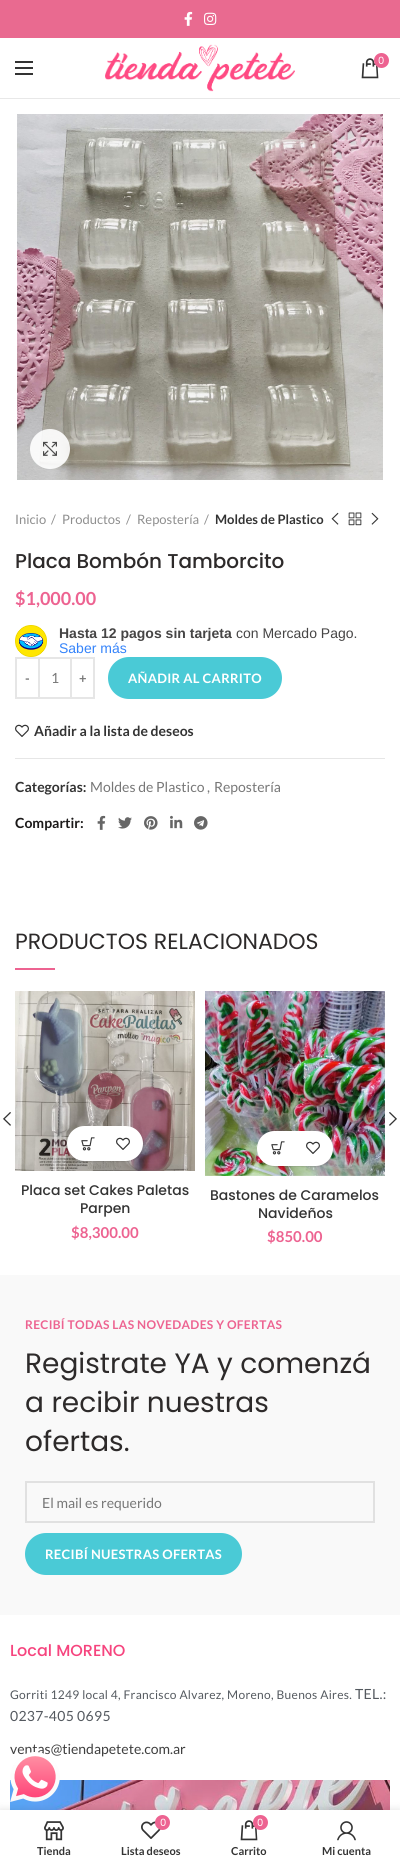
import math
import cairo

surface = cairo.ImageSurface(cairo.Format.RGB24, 400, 1865)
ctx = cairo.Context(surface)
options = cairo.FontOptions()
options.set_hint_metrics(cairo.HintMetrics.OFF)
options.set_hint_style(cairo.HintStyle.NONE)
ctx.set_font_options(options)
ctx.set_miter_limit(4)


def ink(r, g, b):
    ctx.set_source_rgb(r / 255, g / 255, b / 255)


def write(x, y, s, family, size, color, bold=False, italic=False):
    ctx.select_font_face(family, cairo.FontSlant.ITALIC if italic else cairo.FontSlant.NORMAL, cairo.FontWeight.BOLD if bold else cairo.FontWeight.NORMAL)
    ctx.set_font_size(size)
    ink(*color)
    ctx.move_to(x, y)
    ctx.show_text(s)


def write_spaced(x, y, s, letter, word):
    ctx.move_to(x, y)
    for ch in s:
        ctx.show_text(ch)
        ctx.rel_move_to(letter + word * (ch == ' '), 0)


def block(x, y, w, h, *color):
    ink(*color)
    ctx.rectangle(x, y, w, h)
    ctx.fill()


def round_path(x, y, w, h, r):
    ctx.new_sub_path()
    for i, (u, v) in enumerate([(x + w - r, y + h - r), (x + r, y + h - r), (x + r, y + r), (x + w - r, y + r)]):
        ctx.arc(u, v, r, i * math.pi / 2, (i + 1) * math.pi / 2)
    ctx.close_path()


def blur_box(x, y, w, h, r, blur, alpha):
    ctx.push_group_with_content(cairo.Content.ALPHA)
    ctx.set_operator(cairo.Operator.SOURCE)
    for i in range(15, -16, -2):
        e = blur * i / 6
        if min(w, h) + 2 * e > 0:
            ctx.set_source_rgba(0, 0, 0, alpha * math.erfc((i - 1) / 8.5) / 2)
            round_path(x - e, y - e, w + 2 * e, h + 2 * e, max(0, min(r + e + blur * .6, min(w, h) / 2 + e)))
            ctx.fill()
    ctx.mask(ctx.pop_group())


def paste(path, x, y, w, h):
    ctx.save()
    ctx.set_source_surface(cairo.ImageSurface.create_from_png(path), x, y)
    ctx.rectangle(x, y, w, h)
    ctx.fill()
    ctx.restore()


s1 = dict(family="Poppins", size=10, color=(255, 255, 255))
s2 = dict(family="Lato", size=13, color=(142, 142, 142))
s3 = dict(family="Lato", size=13, color=(51, 51, 51), bold=True)
s4 = dict(family="Poppins Medium", size=20, color=(45, 42, 42))
s5 = dict(family="Lato", size=18, color=(237, 99, 145), bold=True)
s6 = dict(family="Liberation Sans", size=14, color=(70, 69, 69), bold=True)
s7 = dict(family="Liberation Sans", size=14, color=(70, 69, 69))
s8 = dict(family="Liberation Sans", size=14, color=(52, 131, 250))
s9 = dict(family="Lato", size=14, color=(119, 119, 119))
s10 = dict(family="Lato", size=14, color=(51, 51, 51), bold=True)
s11 = dict(family="Lato", size=14, color=(27, 25, 25), bold=True)
s12 = dict(family="Poppins", size=22, color=(45, 42, 42))
s13 = dict(family="Poppins Medium", size=14, color=(51, 51, 51))
s14 = dict(family="Lato", size=15, color=(237, 99, 145), bold=True)
s15 = dict(family="Poppins", size=28, color=(45, 42, 42))
s16 = dict(family="Poppins Medium", size=16, color=(246, 68, 126))
s17 = dict(family="Lato", size=14, color=(63, 63, 63))
s18 = dict(family="Lato", size=11, color=(51, 51, 51), bold=True)

ink(255, 255, 255)
ctx.paint()
block(0, 0, 400, 38, 233, 106, 144)
paste("pic1.png", 184, 11, 9, 15)
paste("pic2.png", 204, 12, 13, 13)
block(0, 98, 400, 1, 232, 232, 232)
paste("pic3.png", 105, 44, 190, 48)
paste("pic4.png", 361, 58, 18, 21)
ink(237, 99, 145)
ctx.arc(381.5, 60.5, 7.5, 0, 2 * math.pi)
ctx.fill()
write(378, 64, "0", **s1)
block(15, 67, 18, 2, 51, 51, 51)
block(15, 61, 18, 2, 51, 51, 51)
block(15, 73, 18, 2, 51, 51, 51)
paste("pic5.png", 17, 114, 366, 366)
ctx.set_source_rgba(1, 1, 1, 0.9)
ctx.arc(50, 449, 20, 0, 2 * math.pi)
ctx.fill()
paste("pic6.png", 43, 441, 14, 15)
write(15, 524, "Inicio", **s2)
write(51, 524, "/", **s2)
write(62, 524, "Productos", **s2)
write(126, 524, "/", **s2)
write(137, 524, "Repostería", **s2)
write(204, 524, "/", **s2)
write(215, 524, "Moldes de Plastico", **s3)
paste("pic7.png", 331, 512, 8, 13)
paste("pic8.png", 348, 512, 14, 14)
paste("pic9.png", 371, 512, 8, 13)
write(15, 568, "Placa Bombón Tamborcito", **s4)
write(15, 605, "$1,000.00", **s5)
paste("pic10.png", 15, 625, 32, 32)
write(59, 638, "Hasta 12 pagos sin tarjeta", **s6)
write(236, 638, "con Mercado Pago.", **s7)
write(59, 653, "Saber más", **s8)
ctx.rectangle(16, 658, 23, 40)
ink(230, 230, 230)
ctx.stroke()
ctx.select_font_face("Lato", cairo.FontSlant.NORMAL, cairo.FontWeight.BOLD)
ctx.set_font_size(13)
ink(119, 119, 119)
write_spaced(25, 683, "-", 0.3, 0)
block(40, 657, 30, 2, 230, 230, 230)
block(40, 697, 30, 2, 230, 230, 230)
write(51, 683, "1", **s9)
ctx.rectangle(71, 658, 23, 40)
ink(230, 230, 230)
ctx.stroke()
ctx.select_font_face("Lato", cairo.FontSlant.NORMAL, cairo.FontWeight.BOLD)
ctx.set_font_size(13)
ink(119, 119, 119)
write_spaced(79, 683, "+", 0.3, 0)
ink(74, 202, 214)
round_path(108, 657, 174, 42, 21)
ctx.fill()
ink(255, 255, 255)
write_spaced(128, 683, "AÑADIR AL CARRITO", 0.3, 0)
paste("pic11.png", 15, 724, 14, 13)
write(34, 736, "Añadir a la lista de deseos", **s10)
block(15, 758, 370, 1, 230, 230, 230)
write(15, 792, "Categorías:", **s10)
write(90, 792, "Moldes de Plastico", **s9)
write(207, 792, ",", **s9)
write(214, 792, "Repostería", **s9)
write(15, 828, "Compartir:", **s11)
paste("pic12.png", 97, 815, 9, 15)
paste("pic13.png", 118, 817, 14, 12)
paste("pic14.png", 144, 816, 14, 14)
paste("pic15.png", 170, 815, 13, 14)
paste("pic16.png", 194, 816, 14, 14)
write(15, 949, "PRODUCTOS RELACIONADOS", **s12)
block(15, 968, 40, 2, 237, 99, 145)
paste("pic17.png", 3, 1112, 8, 14)
paste("pic18.png", 389, 1112, 8, 14)
paste("pic19.png", 15, 991, 180, 180)
ink(0, 0, 0)
blur_box(68, 1127, 76, 35, 17.5, 0.5, 0.1)
ink(255, 255, 255)
round_path(67, 1126, 76, 35, 17.5)
ctx.fill()
paste("pic20.png", 81, 1137, 14, 14)
paste("pic11.png", 116, 1137, 14, 13)
write(21, 1195, "Placa set Cakes Paletas", **s13)
write(80, 1213, "Parpen", **s13)
write(71, 1238, "$8,300.00", **s14)
paste("pic21.png", 205, 991, 180, 185)
ink(0, 0, 0)
blur_box(258, 1132, 76, 35, 17.5, 0.5, 0.1)
ink(255, 255, 255)
round_path(257, 1131, 76, 35, 17.5)
ctx.fill()
paste("pic20.png", 271, 1141, 14, 14)
paste("pic11.png", 306, 1141, 14, 13)
write(210, 1200, "Bastones de Caramelos", **s13)
write(258, 1218, "Navideños", **s13)
write(267, 1242, "$850.00", **s14)
block(0, 1275, 400, 340, 249, 249, 249)
ctx.set_font_size(12)
ink(237, 99, 145)
write_spaced(25, 1329, "RECIBÍ TODAS LAS NOVEDADES Y OFERTAS", 0.3, 0)
write(25, 1373, "Registrate YA y comenzá", **s15)
write(25, 1412, "a recibir nuestras", **s15)
write(25, 1451, "ofertas.", **s15)
ctx.rectangle(26, 1482, 348, 40)
ink(225, 225, 225)
ctx.stroke()
write(42, 1508, "El mail es requerido", **s9)
ink(74, 202, 214)
round_path(25, 1533, 217, 42, 21)
ctx.fill()
ctx.select_font_face("Lato", cairo.FontSlant.NORMAL, cairo.FontWeight.BOLD)
ctx.set_font_size(13)
ink(255, 255, 255)
write_spaced(45, 1559, "RECIBÍ NUESTRAS OFERTAS", 0.3, 0)
write(10, 1656, "Local MORENO", **s16)
ctx.select_font_face("Lato")
ctx.set_font_size(12)
ink(84, 89, 95)
write_spaced(10, 1699, "Gorriti 1249 local 4, Francisco Alvarez, Moreno, Buenos Aires.", 0.3, 0)
ctx.set_font_size(14)
write_spaced(355, 1699, "TEL.:", 0.3, 0)
write_spaced(10, 1721, "0237-405 0695", 0.3, 0)
write(10, 1754, "ventas@tiendapetete.com.ar", **s17)
paste("pic22.png", 10, 1780, 380, 30)
ink(0, 0, 0)
blur_box(0, 1810, 400, 55, 0, 4.5, 0.12)
paste("pic23.png", 10, 1752, 50, 50)
block(0, 1810, 400, 55, 255, 255, 255)
paste("pic24.png", 44, 1821, 20, 20)
write(37, 1855, "Tienda", **s18)
paste("pic25.png", 141, 1821, 20, 18)
ink(237, 99, 145)
ctx.arc(162.5, 1822.5, 7.5, 0, 2 * math.pi)
ctx.fill()
write(160, 1826, "0", **s1)
write(121, 1855, "Lista deseos", **s18)
paste("pic4.png", 240, 1820, 18, 21)
ink(237, 99, 145)
ctx.arc(260.5, 1822.5, 7.5, 0, 2 * math.pi)
ctx.fill()
write(257, 1826, "0", **s1)
write(231, 1855, "Carrito", **s18)
paste("pic26.png", 337, 1821, 19, 20)
write(322, 1855, "Mi cuenta", **s18)
surface.write_to_png("screenshot.png")
